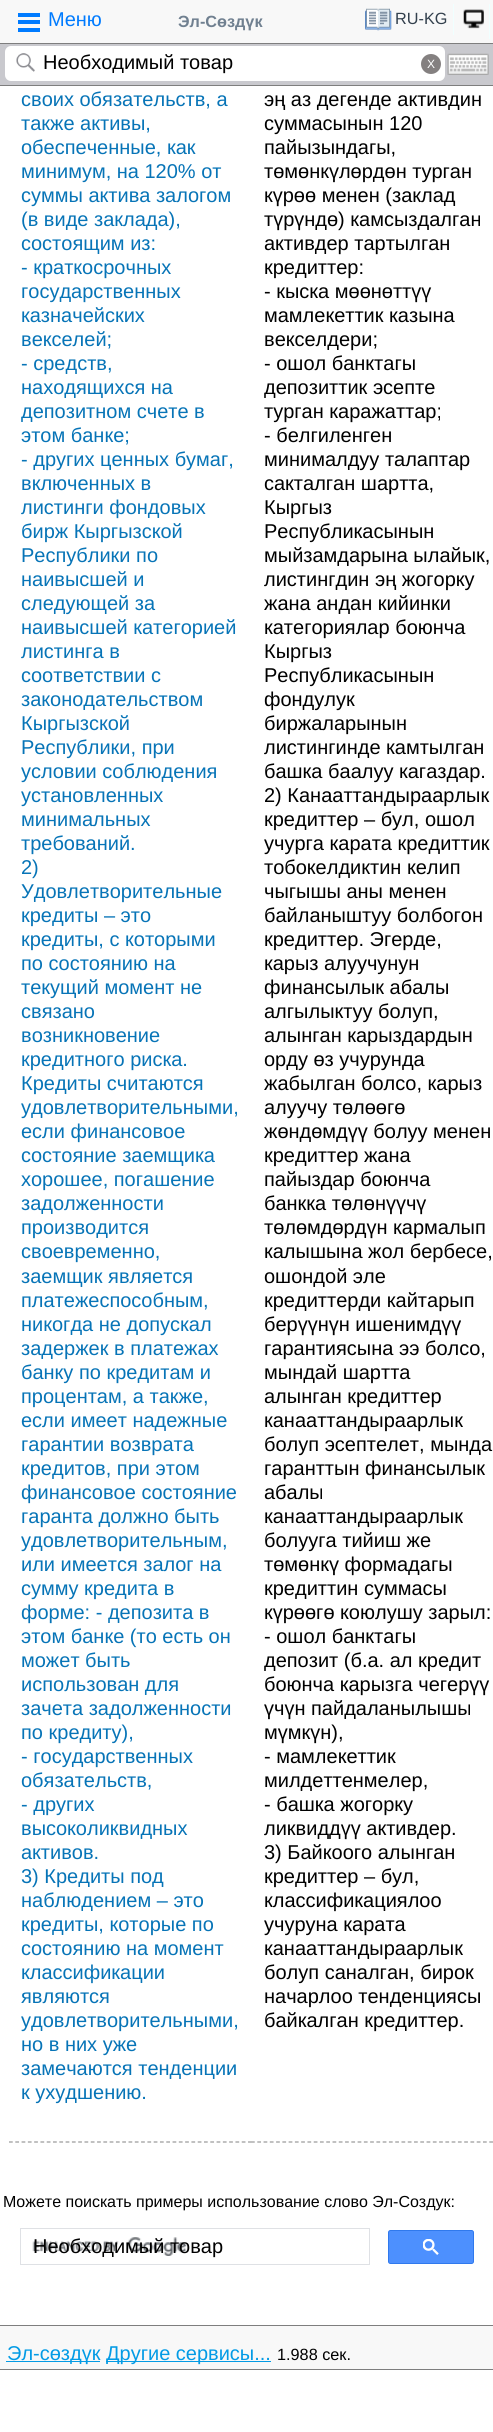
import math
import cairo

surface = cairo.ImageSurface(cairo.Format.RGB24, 493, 2432)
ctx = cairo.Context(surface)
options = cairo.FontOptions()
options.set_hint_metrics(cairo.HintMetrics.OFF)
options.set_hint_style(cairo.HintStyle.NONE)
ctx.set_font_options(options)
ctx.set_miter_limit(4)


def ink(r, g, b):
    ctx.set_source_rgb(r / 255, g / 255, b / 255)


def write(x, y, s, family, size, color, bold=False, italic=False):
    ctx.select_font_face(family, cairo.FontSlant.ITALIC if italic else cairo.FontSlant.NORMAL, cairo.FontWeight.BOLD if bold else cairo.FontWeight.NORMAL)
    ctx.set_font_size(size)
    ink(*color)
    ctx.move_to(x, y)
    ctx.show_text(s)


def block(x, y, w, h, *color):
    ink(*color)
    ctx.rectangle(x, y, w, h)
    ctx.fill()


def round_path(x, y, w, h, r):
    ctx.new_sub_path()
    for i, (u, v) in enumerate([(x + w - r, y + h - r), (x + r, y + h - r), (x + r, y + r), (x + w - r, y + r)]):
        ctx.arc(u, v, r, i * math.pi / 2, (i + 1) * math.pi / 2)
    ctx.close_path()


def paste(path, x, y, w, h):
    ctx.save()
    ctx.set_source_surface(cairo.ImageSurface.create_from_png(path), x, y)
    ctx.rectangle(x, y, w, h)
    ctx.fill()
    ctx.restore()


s1 = dict(family="Liberation Sans", size=20, color=(0, 123, 255))
s2 = dict(family="Liberation Sans", size=16.25, color=(112, 128, 144), bold=True)
s3 = dict(family="Liberation Sans", size=16.25, color=(51, 64, 77))
s4 = dict(family="Liberation Sans", size=20, color=(0, 0, 0))
s5 = dict(family="Liberation Sans", size=12, color=(255, 255, 255))
s6 = dict(family="Liberation Sans", size=20, color=(7, 116, 183))
s7 = dict(family="Liberation Sans", size=16, color=(0, 0, 0))
s8 = dict(family="Liberation Sans", size=20, color=(3, 155, 229))
s9 = dict(family="Liberation Sans", size=16.25, color=(0, 0, 0))

ink(255, 255, 255)
ctx.paint()
block(0, 0, 493, 43, 248, 248, 248)
block(0, 43, 493, 1, 126, 126, 126)
block(18, 13, 22, 4, 0, 123, 255)
block(18, 20, 22, 4, 0, 123, 255)
block(18, 28, 22, 4, 0, 123, 255)
write(48, 26, "Меню", **s1)
write(178, 27, "Эл-Сөздүк", **s2)
block(453, 4, 1, 31, 240, 255, 255)
paste("pic1.png", 365, 8, 27, 23)
write(395, 24, "RU-KG", **s3)
block(489, 4, 1, 35, 240, 255, 255)
paste("pic2.png", 463, 9, 21, 20)
block(0, 44, 493, 41, 201, 201, 206)
block(0, 85, 493, 1, 126, 126, 126)
ink(255, 255, 255)
round_path(5, 46, 440, 35, 6)
ctx.fill()
paste("pic3.png", 16, 53, 19, 19)
write(43, 69, "Необходимый товар", **s4)
ink(132, 128, 128)
ctx.new_path()
ctx.arc(431, 64, 10, 0, 2 * math.pi)
ctx.fill()
write(427, 68, "X", **s5)
paste("pic4.png", 447, 53, 42, 22)
ctx.new_path()
ctx.move_to(9, 2142)
ctx.line_to(251, 2142)
ink(153, 153, 153)
ctx.set_line_width(1.2)
ctx.set_dash([3.75, 2.54])
ctx.stroke()
write(21, 106, "своих обязательств, а", **s6)
write(21, 130, "также активы,", **s6)
write(21, 154, "обеспеченные, как", **s6)
write(21, 178, "минимум, на 120% от", **s6)
write(21, 202, "суммы актива залогом", **s6)
write(21, 226, "(в виде заклада),", **s6)
write(21, 250, "состоящим из:", **s6)
write(21, 274, "- краткосрочных", **s6)
write(21, 298, "государственных", **s6)
write(21, 322, "казначейских", **s6)
write(21, 346, "векселей;", **s6)
write(21, 370, "- средств,", **s6)
write(21, 394, "находящихся на", **s6)
write(21, 418, "депозитном счете в", **s6)
write(21, 442, "этом банке;", **s6)
write(21, 466, "- других ценных бумаг,", **s6)
write(21, 490, "включенных в", **s6)
write(21, 514, "листинги фондовых", **s6)
write(21, 538, "бирж Кыргызской", **s6)
write(21, 562, "Республики по", **s6)
write(21, 586, "наивысшей и", **s6)
write(21, 610, "следующей за", **s6)
write(21, 634, "наивысшей категорией", **s6)
write(21, 658, "листинга в", **s6)
write(21, 682, "соответствии с", **s6)
write(21, 706, "законодательством", **s6)
write(21, 730, "Кыргызской", **s6)
write(21, 754, "Республики, при", **s6)
write(21, 778, "условии соблюдения", **s6)
write(21, 802, "установленных", **s6)
write(21, 826, "минимальных", **s6)
write(21, 850, "требований.", **s6)
write(21, 874, "2)", **s6)
write(21, 898, "Удовлетворительные", **s6)
write(21, 922, "кредиты – это", **s6)
write(21, 946, "кредиты, с которыми", **s6)
write(21, 970, "по состоянию на", **s6)
write(21, 994, "текущий момент не", **s6)
write(21, 1018, "связано", **s6)
write(21, 1042, "возникновение", **s6)
write(21, 1066, "кредитного риска.", **s6)
write(21, 1090, "Кредиты считаются", **s6)
write(21, 1114, "удовлетворительными,", **s6)
write(21, 1138, "если финансовое", **s6)
write(21, 1162, "состояние заемщика", **s6)
write(21, 1186, "хорошее, погашение", **s6)
write(21, 1210, "задолженности", **s6)
write(21, 1234, "производится", **s6)
write(21, 1258, "своевременно,", **s6)
write(21, 1283, "заемщик является", **s6)
write(21, 1307, "платежеспособным,", **s6)
write(21, 1331, "никогда не допускал", **s6)
write(21, 1355, "задержек в платежах", **s6)
write(21, 1379, "банку по кредитам и", **s6)
write(21, 1403, "процентам, а также,", **s6)
write(21, 1427, "если имеет надежные", **s6)
write(21, 1451, "гарантии возврата", **s6)
write(21, 1475, "кредитов, при этом", **s6)
write(21, 1499, "финансовое состояние", **s6)
write(21, 1523, "гаранта должно быть", **s6)
write(21, 1547, "удовлетворительным,", **s6)
write(21, 1571, "или имеется залог на", **s6)
write(21, 1595, "сумму кредита в", **s6)
write(21, 1619, "форме: - депозита в", **s6)
write(21, 1643, "этом банке (то есть он", **s6)
write(21, 1667, "может быть", **s6)
write(21, 1691, "использован для", **s6)
write(21, 1715, "зачета задолженности", **s6)
write(21, 1739, "по кредиту),", **s6)
write(21, 1763, "- государственных", **s6)
write(21, 1787, "обязательств,", **s6)
write(21, 1811, "- других", **s6)
write(21, 1835, "высоколиквидных", **s6)
write(21, 1859, "активов.", **s6)
write(21, 1883, "3) Кредиты под", **s6)
write(21, 1907, "наблюдением – это", **s6)
write(21, 1931, "кредиты, которые по", **s6)
write(21, 1955, "состоянию на момент", **s6)
write(21, 1979, "классификации", **s6)
write(21, 2003, "являются", **s6)
write(21, 2027, "удовлетворительными,", **s6)
write(21, 2051, "но в них уже", **s6)
write(21, 2075, "замечаются тенденции", **s6)
write(21, 2099, "к ухудшению.", **s6)
ctx.new_path()
ctx.move_to(251, 2142)
ctx.line_to(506, 2142)
ink(153, 153, 153)
ctx.set_dash([3.75, 2.52])
ctx.stroke()
write(264, 106, "эң аз дегенде активдин", **s4)
write(264, 130, "суммасынын 120", **s4)
write(264, 154, "пайызындагы,", **s4)
write(264, 178, "төмөнкүлөрдөн турган", **s4)
write(264, 202, "күрөө менен (заклад", **s4)
write(264, 226, "түрүндө) камсыздалган", **s4)
write(264, 250, "активдер тартылган", **s4)
write(264, 274, "кредиттер:", **s4)
write(264, 298, "- кыска мөөнөттүү", **s4)
write(264, 322, "мамлекеттик казына", **s4)
write(264, 346, "векселдери;", **s4)
write(264, 370, "- ошол банктагы", **s4)
write(264, 394, "депозиттик эсепте", **s4)
write(264, 418, "турган каражаттар;", **s4)
write(264, 442, "- белгиленген", **s4)
write(264, 466, "минималдуу талаптар", **s4)
write(264, 490, "сакталган шартта,", **s4)
write(264, 514, "Кыргыз", **s4)
write(264, 538, "Республикасынын", **s4)
write(264, 562, "мыйзамдарына ылайык,", **s4)
write(264, 586, "листингдин эң жогорку", **s4)
write(264, 610, "жана андан кийинки", **s4)
write(264, 634, "категориялар боюнча", **s4)
write(264, 658, "Кыргыз", **s4)
write(264, 682, "Республикасынын", **s4)
write(264, 706, "фондулук", **s4)
write(264, 730, "биржаларынын", **s4)
write(264, 754, "листингинде камтылган", **s4)
write(264, 778, "башка баалуу кагаздар.", **s4)
write(264, 802, "2) Канааттандыраарлык", **s4)
write(264, 826, "кредиттер – бул, ошол", **s4)
write(264, 850, "учурга карата кредиттик", **s4)
write(264, 874, "тобокелдиктин келип", **s4)
write(264, 898, "чыгышы аны менен", **s4)
write(264, 922, "байланыштуу болбогон", **s4)
write(264, 946, "кредиттер. Эгерде,", **s4)
write(264, 970, "карыз алуучунун", **s4)
write(264, 994, "финансылык абалы", **s4)
write(264, 1018, "алгылыктуу болуп,", **s4)
write(264, 1042, "алынган карыздардын", **s4)
write(264, 1066, "орду өз учурунда", **s4)
write(264, 1090, "жабылган болсо, карыз", **s4)
write(264, 1114, "алуучу төлөөгө", **s4)
write(264, 1138, "жөндөмдүү болуу менен", **s4)
write(264, 1162, "кредиттер жана", **s4)
write(264, 1186, "пайыздар боюнча", **s4)
write(264, 1210, "банкка төлөнүүчү", **s4)
write(264, 1234, "төлөмдөрдүн кармалып", **s4)
write(264, 1258, "калышына жол бербесе,", **s4)
write(264, 1283, "ошондой эле", **s4)
write(264, 1307, "кредиттерди кайтарып", **s4)
write(264, 1331, "берүүнүн ишенимдүү", **s4)
write(264, 1355, "гарантиясына ээ болсо,", **s4)
write(264, 1379, "мындай шартта", **s4)
write(264, 1403, "алынган кредиттер", **s4)
write(264, 1427, "канааттандыраарлык", **s4)
write(264, 1451, "болуп эсептелет, мында", **s4)
write(264, 1475, "гаранттын финансылык", **s4)
write(264, 1499, "абалы", **s4)
write(264, 1523, "канааттандыраарлык", **s4)
write(264, 1547, "болууга тийиш же", **s4)
write(264, 1571, "төмөнкү формадагы", **s4)
write(264, 1595, "кредиттин суммасы", **s4)
write(264, 1619, "күрөөгө коюлушу зарыл:", **s4)
write(264, 1643, "- ошол банктагы", **s4)
write(264, 1667, "депозит (б.а. ал кредит", **s4)
write(264, 1691, "боюнча карызга чегерүү", **s4)
write(264, 1715, "үчүн пайдаланылышы", **s4)
write(264, 1739, "мүмкүн),", **s4)
write(264, 1763, "- мамлекеттик", **s4)
write(264, 1787, "милдеттенмелер,", **s4)
write(264, 1811, "- башка жогорку", **s4)
write(264, 1835, "ликвиддүү активдер.", **s4)
write(264, 1859, "3) Байкоого алынган", **s4)
write(264, 1883, "кредиттер – бул,", **s4)
write(264, 1907, "классификациялоо", **s4)
write(264, 1931, "учуруна карата", **s4)
write(264, 1955, "канааттандыраарлык", **s4)
write(264, 1979, "болуп саналган, бирок", **s4)
write(264, 2003, "начарлоо тенденциясы", **s4)
write(264, 2027, "байкалган кредиттер.", **s4)
write(3, 2207, "Можете поискать примеры использование слово Эл-Создук:", **s7)
ctx.rectangle(20.5, 2228.5, 349, 36)
ink(223, 225, 229)
ctx.set_line_width(1)
ctx.set_dash([])
ctx.stroke()
paste("pic5.png", 32, 2237, 155, 19)
write(33, 2253, "Необходимый товар", **s4)
ink(77, 144, 254)
round_path(388.5, 2230.5, 85, 33, 2)
ctx.fill_preserve()
ink(48, 121, 237)
ctx.stroke()
paste("pic6.png", 423, 2239, 16, 16)
block(0, 2326, 493, 43, 248, 248, 248)
block(0, 2325, 493, 1, 126, 126, 126)
block(0, 2369, 493, 1, 126, 126, 126)
block(6, 2361, 94, 1, 3, 155, 229)
write(7, 2360, "Эл-сөздүк", **s8)
block(106, 2361, 165, 1, 3, 155, 229)
write(106, 2360, "Другие сервисы...", **s8)
write(277, 2360, "1.988 сек.", **s9)
surface.write_to_png("screenshot.png")
